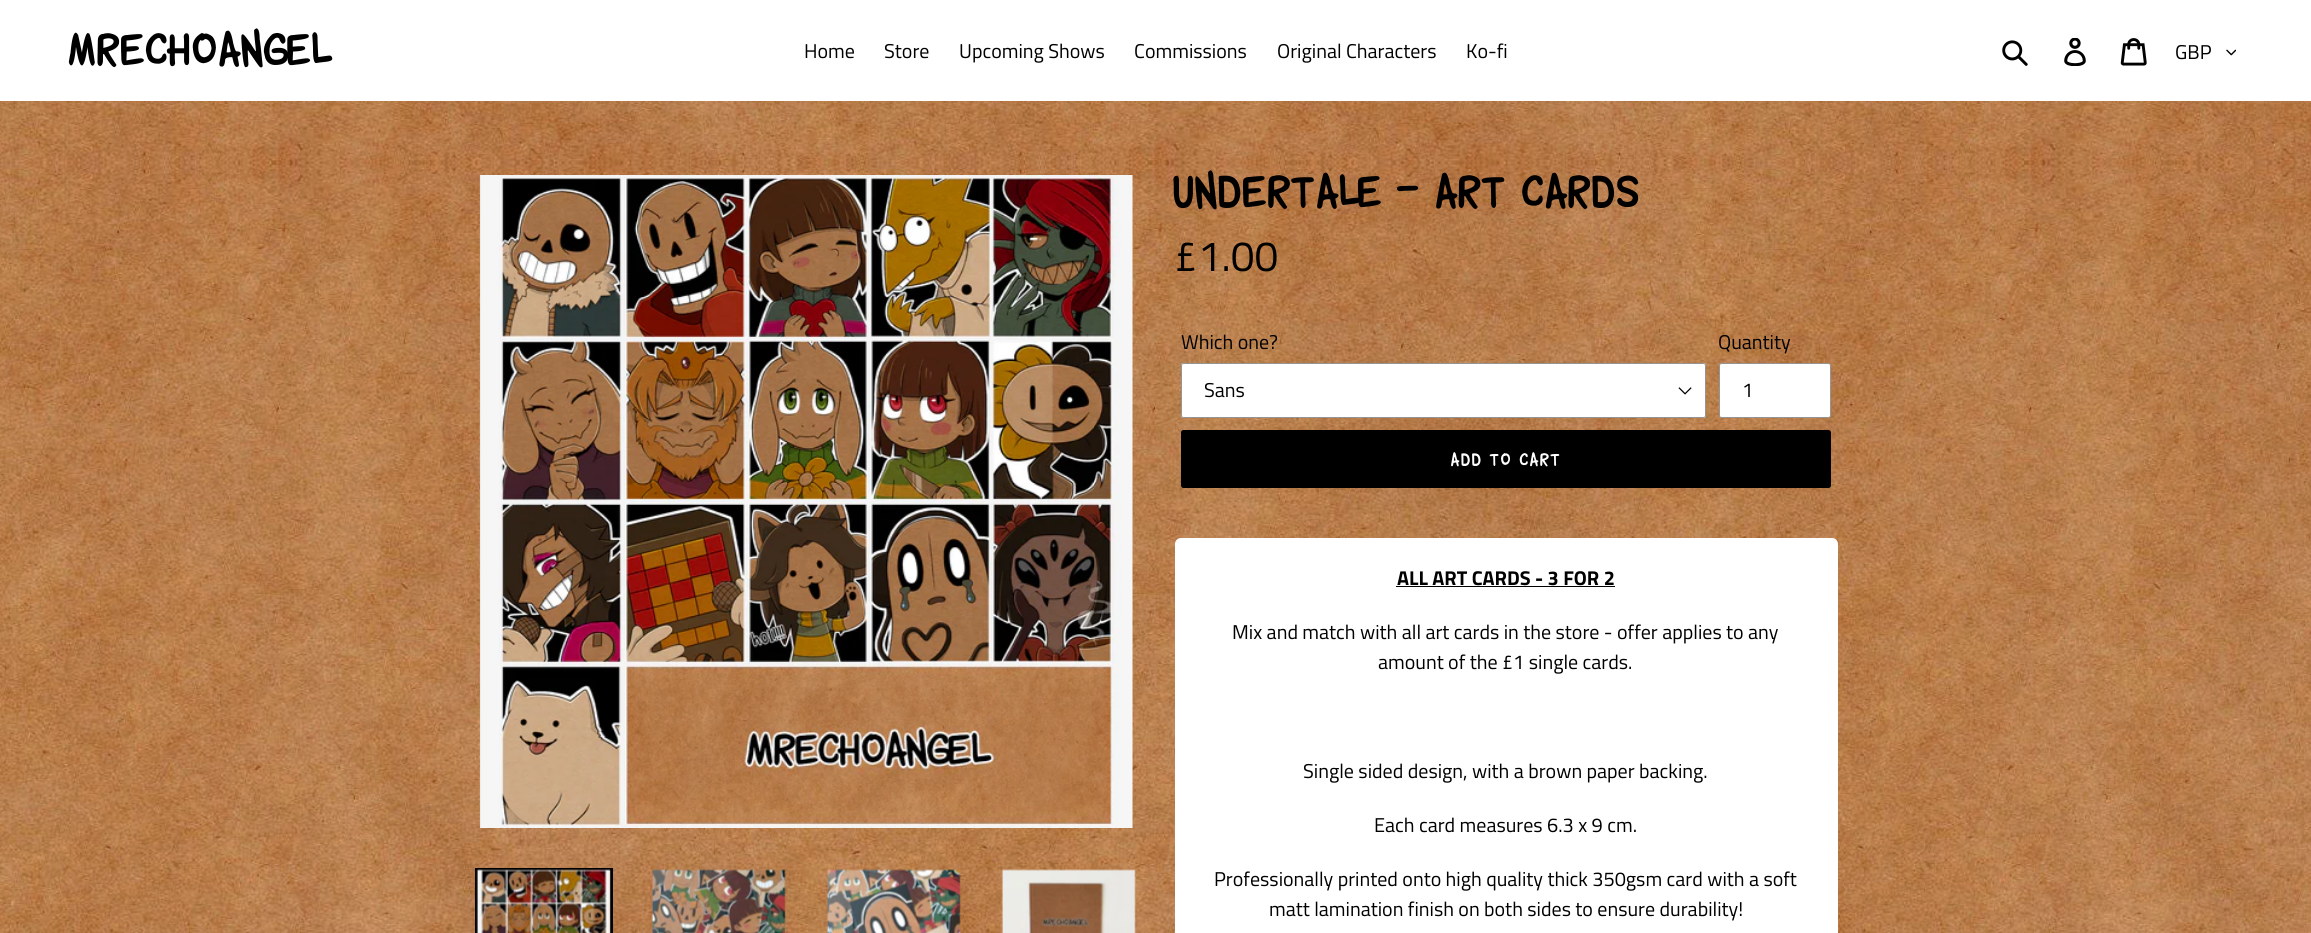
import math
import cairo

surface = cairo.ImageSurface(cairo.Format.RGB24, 2311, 933)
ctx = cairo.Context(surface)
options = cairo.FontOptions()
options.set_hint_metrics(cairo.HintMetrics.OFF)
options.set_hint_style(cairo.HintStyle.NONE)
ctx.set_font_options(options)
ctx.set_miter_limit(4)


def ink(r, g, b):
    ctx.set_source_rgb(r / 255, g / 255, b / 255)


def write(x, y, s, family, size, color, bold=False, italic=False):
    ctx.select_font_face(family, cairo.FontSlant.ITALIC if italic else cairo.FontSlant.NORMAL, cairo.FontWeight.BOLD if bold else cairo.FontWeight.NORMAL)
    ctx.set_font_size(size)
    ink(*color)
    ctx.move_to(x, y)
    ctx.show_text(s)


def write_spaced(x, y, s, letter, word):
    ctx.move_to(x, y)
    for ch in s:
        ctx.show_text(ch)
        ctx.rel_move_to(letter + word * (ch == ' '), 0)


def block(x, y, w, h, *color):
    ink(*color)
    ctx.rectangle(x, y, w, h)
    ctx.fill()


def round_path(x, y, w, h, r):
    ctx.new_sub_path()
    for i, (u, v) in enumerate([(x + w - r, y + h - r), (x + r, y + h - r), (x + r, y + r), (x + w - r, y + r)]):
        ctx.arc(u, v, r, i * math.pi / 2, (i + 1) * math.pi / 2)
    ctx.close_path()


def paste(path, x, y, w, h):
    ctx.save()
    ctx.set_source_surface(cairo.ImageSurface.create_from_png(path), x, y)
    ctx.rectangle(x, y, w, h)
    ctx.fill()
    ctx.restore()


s1 = dict(family="Titillium Web", size=20, color=(0, 0, 0))
s2 = dict(family="Titillium Web", size=42.5, color=(0, 0, 0))
s3 = dict(family="Titillium Web", size=20, color=(0, 0, 0), bold=True)

ink(255, 255, 255)
ctx.paint()
paste("pic1.png", 0, 101, 2311, 832)
ctx.select_font_face("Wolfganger")
ctx.set_font_size(53.75)
ink(0, 0, 0)
write_spaced(69, 66, "MRECHOANGEL", 1.25, 0)
write(804, 58, "Home", **s1)
write(884, 58, "Store", **s1)
write(959, 58, "Upcoming Shows", **s1)
write(1134, 58, "Commissions", **s1)
write(1277, 58, "Original Characters", **s1)
write(1466, 58, "Ko-fi", **s1)
paste("pic2.png", 2002, 40, 26, 26)
paste("pic3.png", 2064, 38, 22, 28)
paste("pic4.png", 2120, 38, 27, 28)
write(2175, 59, "GBP", **s1)
paste("pic5.png", 2226, 49, 10, 7)
paste("pic6.png", 479, 175, 654, 653)
ctx.rectangle(476.5, 869.5, 135, 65)
ctx.set_line_width(3)
ctx.stroke()
paste("pic7.png", 476, 869, 135, 64)
paste("pic8.png", 651, 869, 135, 64)
paste("pic9.png", 826, 869, 135, 64)
paste("pic10.png", 1001, 869, 135, 64)
ctx.select_font_face("Wolfganger")
ctx.set_font_size(53.75)
write_spaced(1174, 208, "UNDERTALE - ART CARDS", 1.25, 0)
write(1174, 271, "£1.00", **s2)
write(1181, 349, "Which one?", **s1)
ink(255, 255, 255)
round_path(1181, 363, 525, 55, 2.5)
ctx.fill()
paste("pic11.png", 1678, 387, 14, 8)
round_path(1181.5, 363.5, 524, 54, 2)
ink(148, 148, 148)
ctx.set_line_width(1)
ctx.stroke()
write(1204, 397, "Sans", **s1)
write(1718, 349, "Quantity", **s1)
ink(255, 255, 255)
round_path(1719.5, 363.5, 111, 54, 2)
ctx.fill_preserve()
ink(148, 148, 148)
ctx.stroke()
write(1742, 397, "1", **s1)
round_path(1181, 430, 650, 58, 2.5)
ctx.fill()
ctx.select_font_face("Wolfganger")
ctx.set_font_size(21)
ink(255, 255, 255)
write_spaced(1451, 466, "ADD TO CART", 1.75, 0)
round_path(1175, 538, 663, 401, 6)
ctx.fill()
write(1397, 585, "ALL ART CARDS - 3 FOR 2", **s3)
block(1396, 586, 219, 1, 0, 0, 0)
write(1232, 639, "Mix and match with all art cards in the store - offer applies to any", **s1)
write(1378, 669, "amount of the £1 single cards.", **s1)
write(1303, 778, "Single sided design, with a brown paper backing.", **s1)
write(1374, 832, "Each card measures 6.3 x 9 cm.", **s1)
write(1214, 886, "Professionally printed onto high quality thick 350gsm card with a soft", **s1)
write(1269, 916, "matt lamination finish on both sides to ensure durability!", **s1)
surface.write_to_png("screenshot.png")
